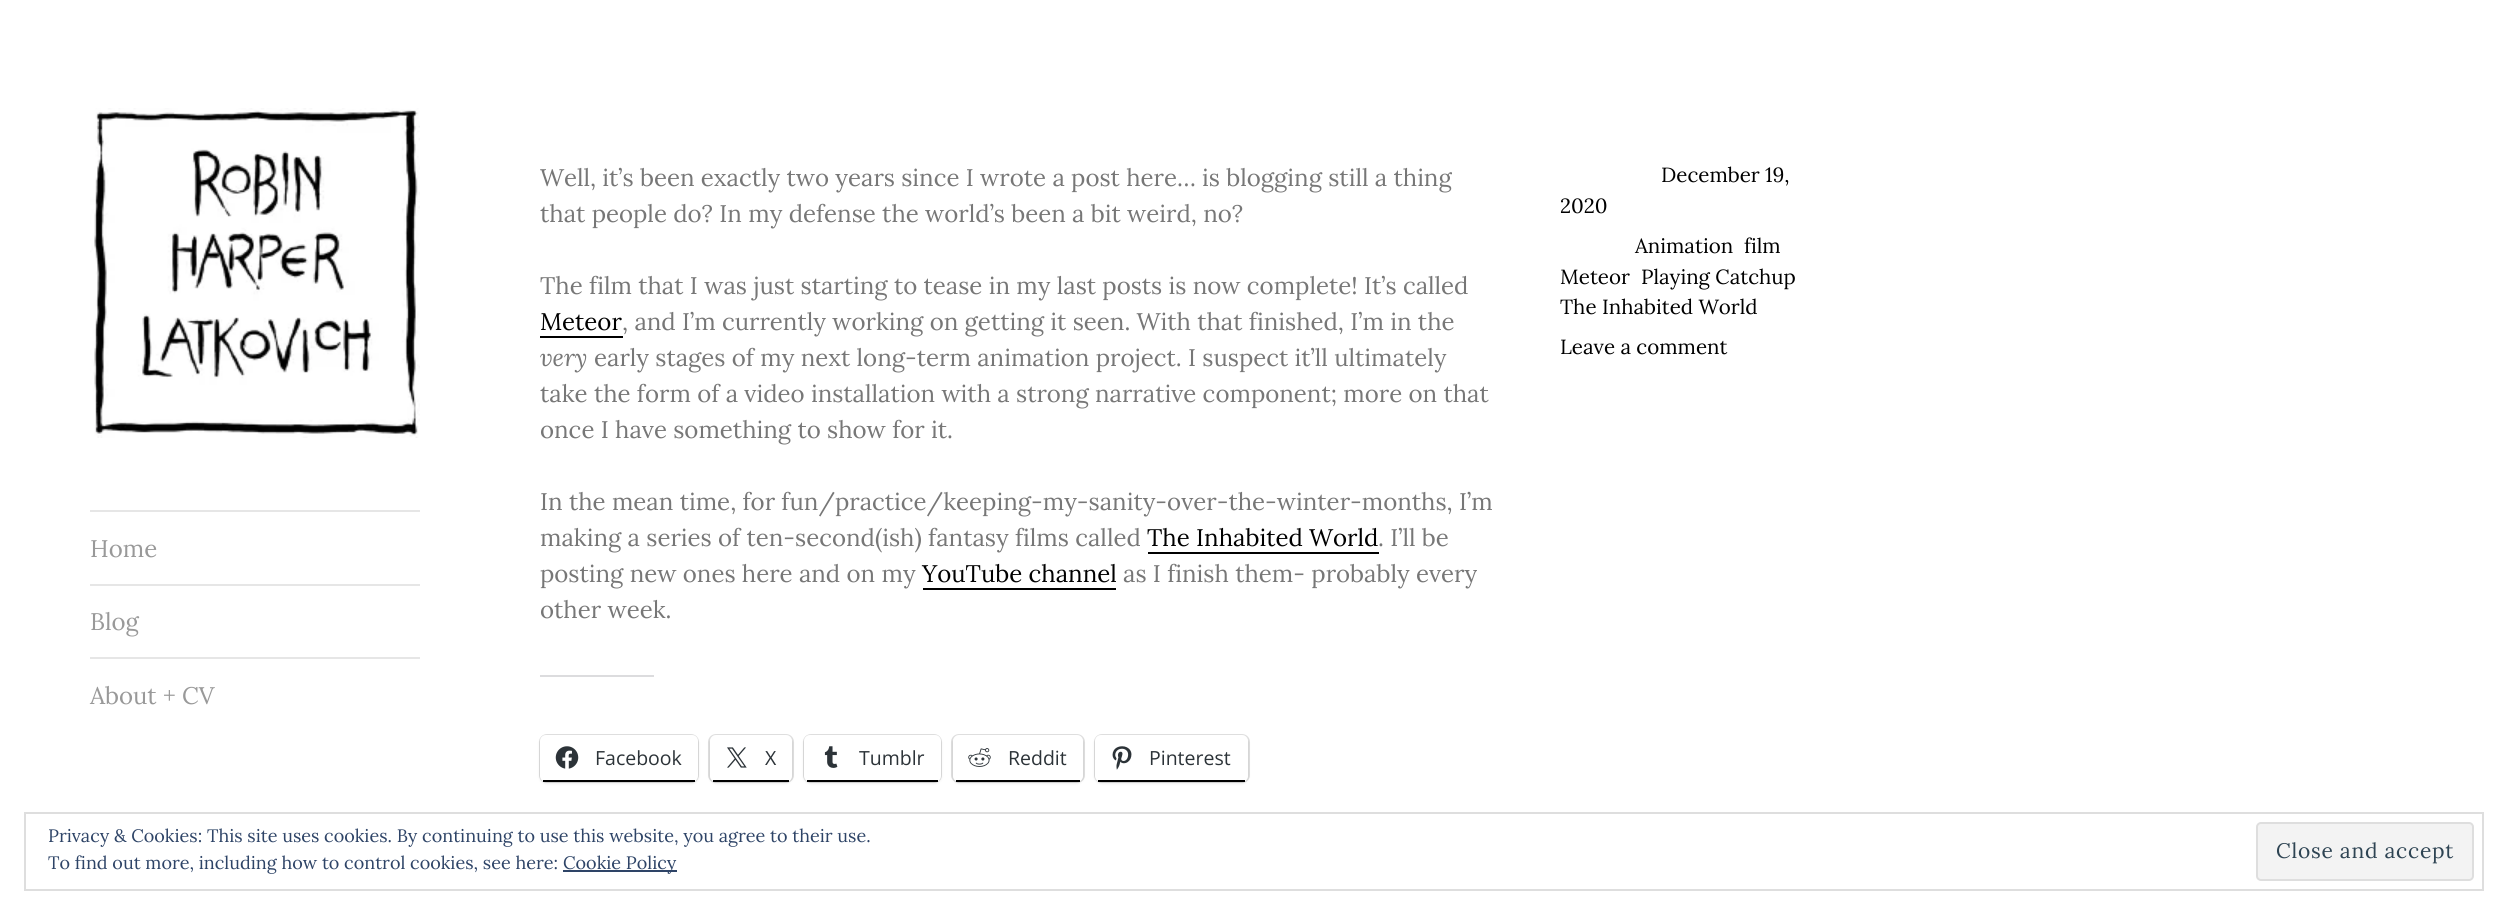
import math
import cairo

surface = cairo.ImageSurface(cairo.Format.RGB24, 2508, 915)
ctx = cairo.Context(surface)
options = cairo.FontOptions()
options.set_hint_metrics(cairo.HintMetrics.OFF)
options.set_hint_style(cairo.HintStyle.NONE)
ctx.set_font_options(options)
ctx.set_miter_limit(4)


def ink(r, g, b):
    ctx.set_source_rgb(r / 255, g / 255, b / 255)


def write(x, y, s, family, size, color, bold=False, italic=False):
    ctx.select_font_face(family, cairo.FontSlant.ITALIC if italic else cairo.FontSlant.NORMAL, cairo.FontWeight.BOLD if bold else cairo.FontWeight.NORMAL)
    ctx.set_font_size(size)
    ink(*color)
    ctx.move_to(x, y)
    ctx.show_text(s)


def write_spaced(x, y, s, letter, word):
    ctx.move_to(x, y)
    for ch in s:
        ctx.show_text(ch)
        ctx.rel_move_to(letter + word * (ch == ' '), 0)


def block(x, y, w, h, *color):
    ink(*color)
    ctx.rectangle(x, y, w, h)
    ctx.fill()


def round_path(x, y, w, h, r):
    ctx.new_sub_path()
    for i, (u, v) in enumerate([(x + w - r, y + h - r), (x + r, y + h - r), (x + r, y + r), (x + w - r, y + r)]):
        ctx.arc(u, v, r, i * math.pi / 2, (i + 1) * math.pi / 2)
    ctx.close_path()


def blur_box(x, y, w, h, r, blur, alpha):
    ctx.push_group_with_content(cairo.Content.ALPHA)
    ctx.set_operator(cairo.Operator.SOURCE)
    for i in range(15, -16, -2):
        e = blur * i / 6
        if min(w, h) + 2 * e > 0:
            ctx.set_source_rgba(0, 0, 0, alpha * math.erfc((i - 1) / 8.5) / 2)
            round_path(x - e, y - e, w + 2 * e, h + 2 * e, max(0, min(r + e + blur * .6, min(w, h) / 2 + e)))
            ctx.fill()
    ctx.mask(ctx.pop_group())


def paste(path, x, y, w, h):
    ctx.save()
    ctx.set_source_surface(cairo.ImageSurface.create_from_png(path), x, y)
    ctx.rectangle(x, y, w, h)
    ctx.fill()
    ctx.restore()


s1 = dict(family="Lora", size=24, color=(153, 153, 153))
s2 = dict(family="Lora", size=24, color=(119, 119, 119))
s3 = dict(family="Lora", size=24, color=(0, 0, 0))
s4 = dict(family="Lora", size=24, color=(119, 119, 119), italic=True)
s5 = dict(family="Open Sans", size=19.5, color=(44, 51, 56))
s6 = dict(family="Lora", size=20.5, color=(0, 0, 0))
s7 = dict(family="Lora", size=18, color=(46, 68, 103))

ink(255, 255, 255)
ctx.paint()
paste("pic1.png", 90, 108, 330, 330)
block(90, 510, 330, 2, 230, 230, 230)
write(90, 557, "Home", **s1)
block(90, 584, 330, 2, 230, 230, 230)
write(90, 630, "Blog", **s1)
block(90, 657, 330, 2, 230, 230, 230)
write(90, 704, "About + CV", **s1)
write(540, 186, "Well, it’s been exactly two years since I wrote a post here… is blogging still a thing", **s2)
write(540, 222, "that people do? In my defense the world’s been a bit weird, no?", **s2)
write(540, 294, "The film that I was just starting to tease in my last posts is now complete! It’s called", **s2)
write(540, 330, "Meteor", **s3)
block(540, 336, 83, 2, 0, 0, 0)
write(622, 330, ", and I’m currently working on getting it seen. With that finished, I’m in the", **s2)
write(540, 366, "very", **s4)
write(594, 366, "early stages of my next long-term animation project. I suspect it’ll ultimately", **s2)
write(540, 402, "take the form of a video installation with a strong narrative component; more on that", **s2)
write(540, 438, "once I have something to show for it.", **s2)
write(540, 510, "In the mean time, for fun/practice/keeping-my-sanity-over-the-winter-months, I’m", **s2)
write(540, 546, "making a series of ten-second(ish) fantasy films called", **s2)
write(1147, 546, "The Inhabited World", **s3)
block(1148, 552, 231, 2, 0, 0, 0)
write(1378, 546, ". I’ll be", **s2)
write(540, 582, "posting new ones here and on my", **s2)
write(922, 582, "YouTube channel", **s3)
block(923, 588, 193, 2, 0, 0, 0)
write(1123, 582, "as I finish them- probably every", **s2)
write(540, 618, "other week.", **s2)
block(540, 675, 114, 2, 220, 220, 222)
round_path(540, 735, 158, 47, 7)
ink(224, 224, 224)
ctx.stroke()
ink(0, 0, 0)
blur_box(540, 737, 158, 46, 6, 1.5, 0.12)
ink(255, 255, 255)
round_path(540, 735, 158, 47, 6)
ctx.fill()
block(543, 780, 152, 2, 0, 0, 0)
paste("pic2.png", 555, 746, 24, 23)
write(595, 765, "Facebook", **s5)
round_path(709, 735, 84, 47, 7)
ink(224, 224, 224)
ctx.stroke()
ink(0, 0, 0)
blur_box(710, 737, 82, 46, 6, 1.5, 0.12)
ink(255, 255, 255)
round_path(710, 735, 82, 47, 6)
ctx.fill()
block(713, 780, 76, 2, 0, 0, 0)
paste("pic3.png", 727, 747, 20, 21)
write(765, 765, "X", **s5)
round_path(804, 735, 137, 47, 7)
ink(224, 224, 224)
ctx.stroke()
ink(0, 0, 0)
blur_box(804, 737, 137, 46, 6, 1.5, 0.12)
ink(255, 255, 255)
round_path(804, 735, 137, 47, 6)
ctx.fill()
block(807, 780, 131, 2, 0, 0, 0)
paste("pic4.png", 824, 746, 14, 22)
write(859, 765, "Tumblr", **s5)
round_path(952, 735, 132, 47, 7)
ink(224, 224, 224)
ctx.stroke()
ink(0, 0, 0)
blur_box(953, 737, 130, 46, 6, 1.5, 0.12)
ink(255, 255, 255)
round_path(953, 735, 130, 47, 6)
ctx.fill()
block(956, 780, 124, 2, 0, 0, 0)
paste("pic5.png", 968, 748, 23, 19)
write(1008, 765, "Reddit", **s5)
round_path(1095, 735, 154, 47, 7)
ink(224, 224, 224)
ctx.stroke()
ink(0, 0, 0)
blur_box(1095, 737, 153, 46, 6, 1.5, 0.12)
ink(255, 255, 255)
round_path(1095, 735, 153, 47, 6)
ctx.fill()
block(1098, 780, 147, 2, 0, 0, 0)
paste("pic6.png", 1112, 746, 20, 24)
write(1149, 765, "Pinterest", **s5)
write(1661, 182, "December 19,", **s6)
write(1560, 213, "2020", **s6)
write(1635, 253, "Animation", **s6)
write(1744, 253, "film", **s6)
write(1560, 284, "Meteor", **s6)
write(1641, 284, "Playing Catchup", **s6)
write(1560, 314, "The Inhabited World", **s6)
write(1560, 354, "Leave a comment", **s6)
ctx.rectangle(25, 813, 2458, 77)
ink(222, 222, 222)
ctx.stroke()
write(48, 842, "Privacy & Cookies: This site uses cookies. By continuing to use this website, you agree to their use.", **s7)
write(48, 869, "To find out more, including how to control cookies, see here:", **s7)
block(563, 870, 114, 2, 46, 68, 103)
write(563, 869, "Cookie Policy", **s7)
ink(243, 243, 243)
round_path(2257, 823, 216, 57, 4)
ctx.fill_preserve()
ink(222, 222, 222)
ctx.stroke()
ctx.set_font_size(21)
ink(46, 68, 83)
write_spaced(2276, 858, "Close and accept", 0.75, 0)
surface.write_to_png("screenshot.png")
